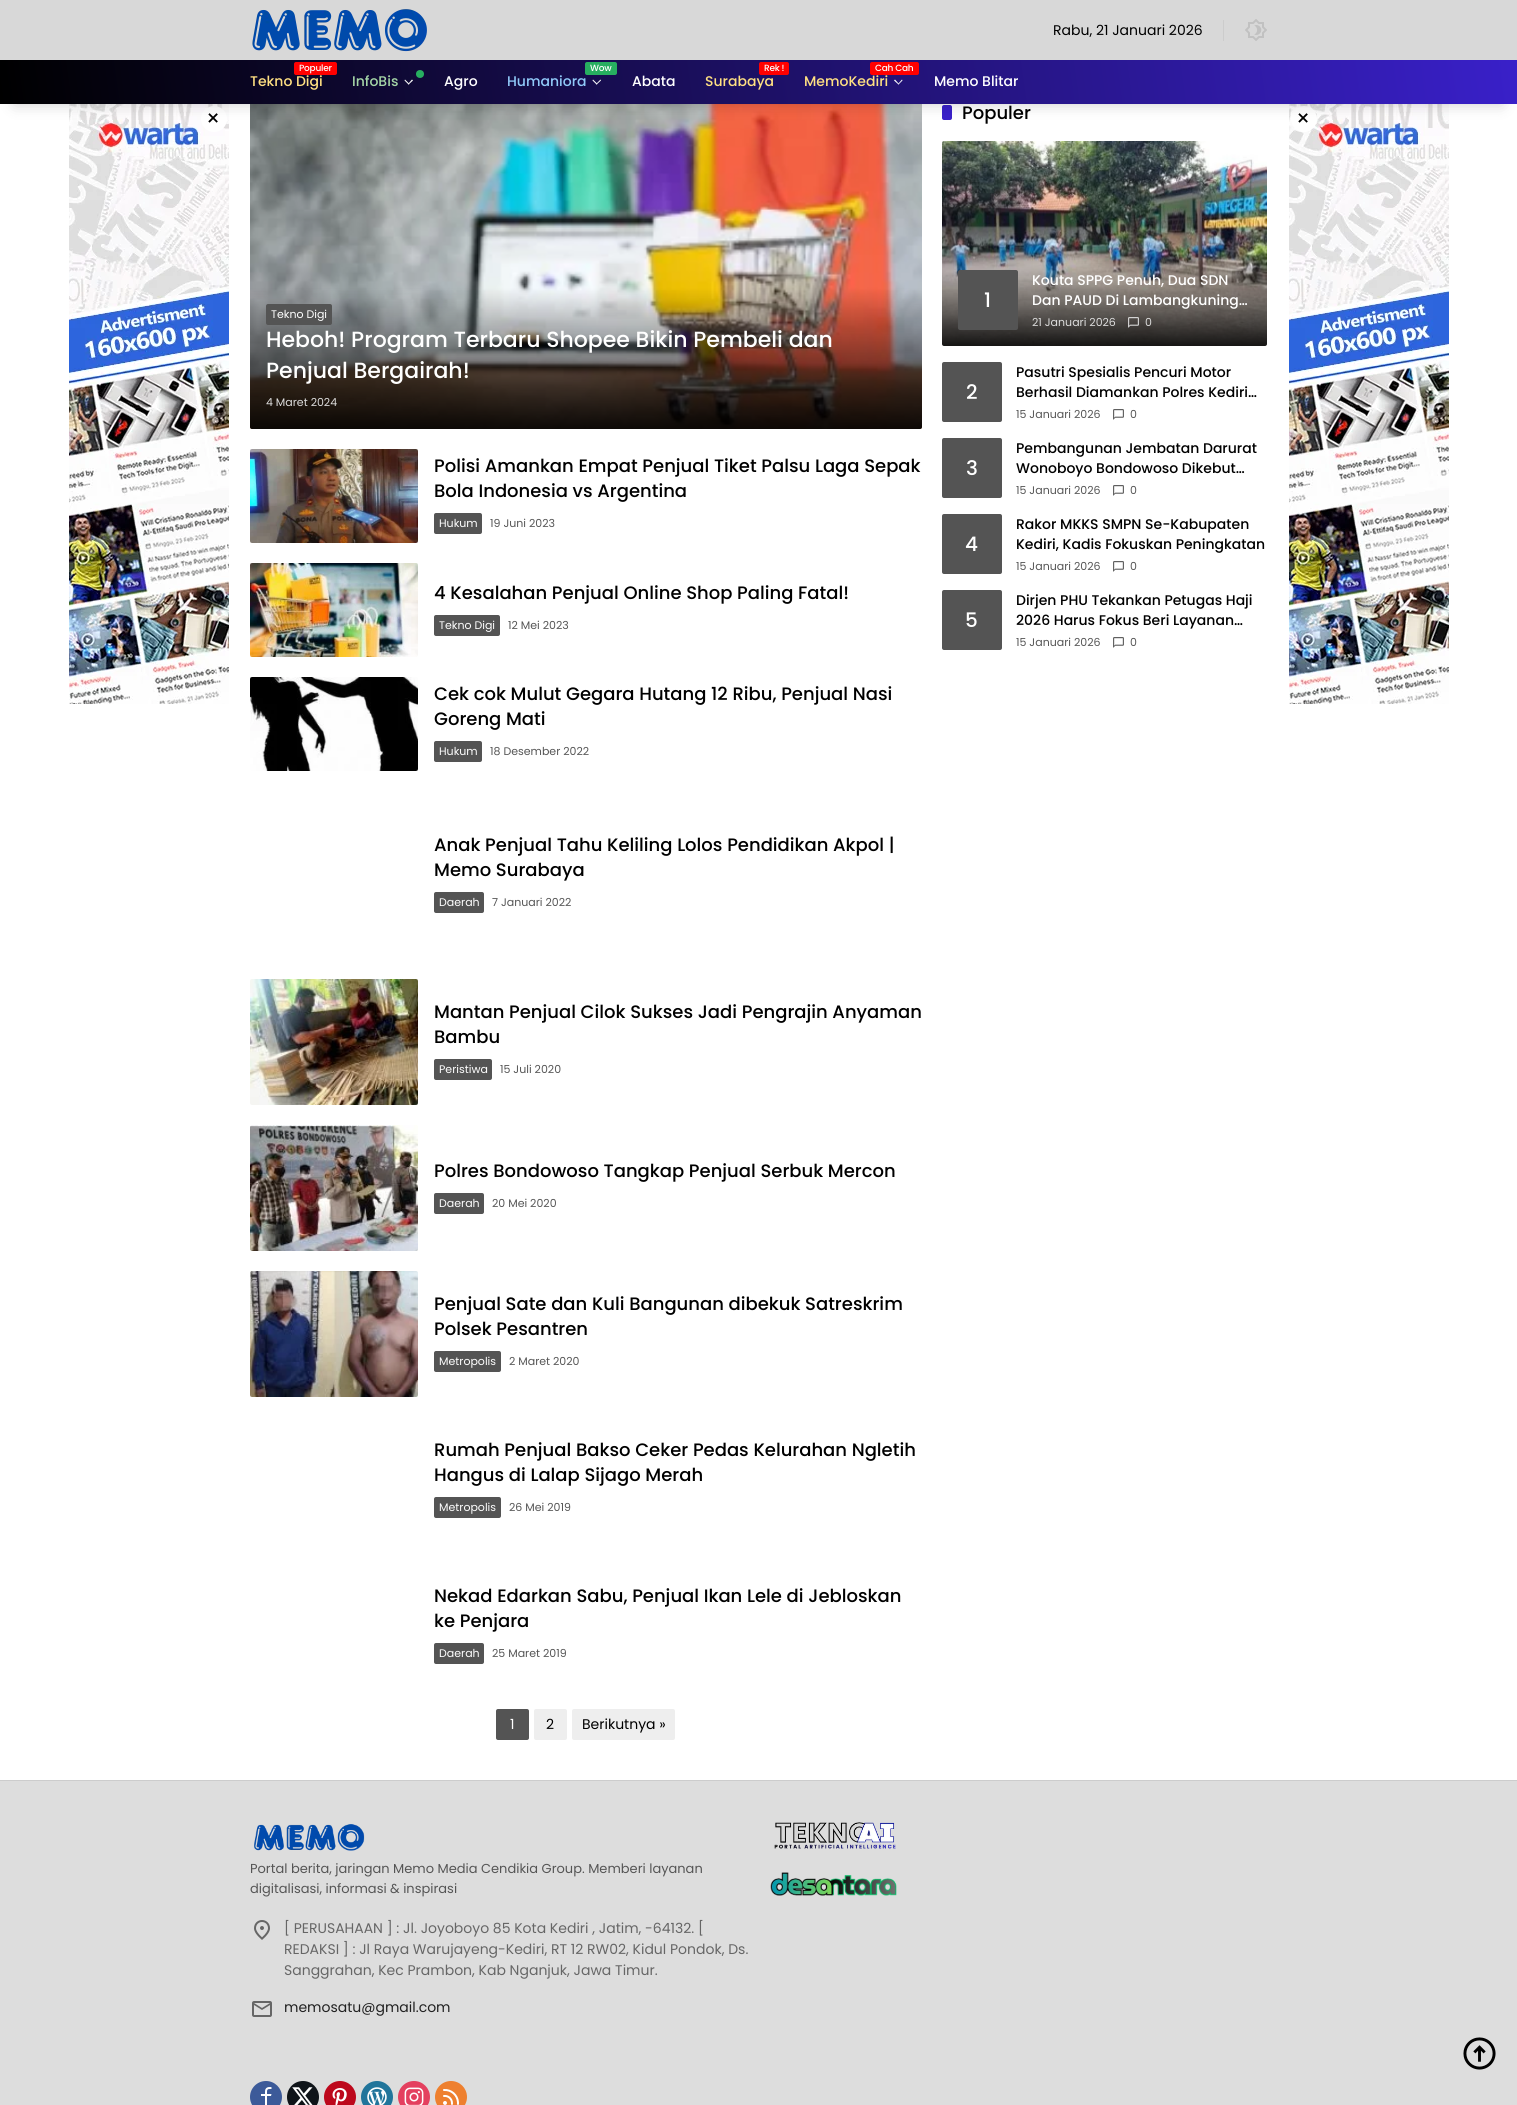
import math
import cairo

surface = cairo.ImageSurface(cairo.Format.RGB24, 1517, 2105)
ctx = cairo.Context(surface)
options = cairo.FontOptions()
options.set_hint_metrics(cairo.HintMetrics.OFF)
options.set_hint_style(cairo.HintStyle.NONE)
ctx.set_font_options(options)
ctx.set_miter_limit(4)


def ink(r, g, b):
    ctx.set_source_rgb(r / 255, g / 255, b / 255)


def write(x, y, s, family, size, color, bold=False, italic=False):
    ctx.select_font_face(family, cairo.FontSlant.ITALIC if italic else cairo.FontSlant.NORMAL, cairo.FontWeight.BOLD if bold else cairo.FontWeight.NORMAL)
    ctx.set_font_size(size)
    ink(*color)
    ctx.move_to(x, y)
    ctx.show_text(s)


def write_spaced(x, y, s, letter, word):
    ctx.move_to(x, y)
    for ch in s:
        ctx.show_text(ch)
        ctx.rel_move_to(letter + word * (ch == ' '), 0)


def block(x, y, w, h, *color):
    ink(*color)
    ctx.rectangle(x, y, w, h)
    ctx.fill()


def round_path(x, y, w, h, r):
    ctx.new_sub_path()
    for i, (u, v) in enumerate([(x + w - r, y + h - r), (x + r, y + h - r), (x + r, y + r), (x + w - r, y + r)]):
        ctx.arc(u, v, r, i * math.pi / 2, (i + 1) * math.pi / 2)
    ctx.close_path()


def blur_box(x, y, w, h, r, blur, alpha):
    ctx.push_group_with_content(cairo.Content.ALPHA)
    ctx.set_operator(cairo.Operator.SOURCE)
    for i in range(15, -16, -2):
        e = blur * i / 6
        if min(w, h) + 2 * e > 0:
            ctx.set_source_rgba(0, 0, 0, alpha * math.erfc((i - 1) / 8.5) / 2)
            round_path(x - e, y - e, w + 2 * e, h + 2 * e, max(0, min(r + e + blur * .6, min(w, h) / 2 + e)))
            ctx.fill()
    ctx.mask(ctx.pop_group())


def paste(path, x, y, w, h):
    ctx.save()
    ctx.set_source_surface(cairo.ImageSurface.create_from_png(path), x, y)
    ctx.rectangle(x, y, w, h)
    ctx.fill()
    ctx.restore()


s1 = dict(family="Poppins", size=14, color=(0, 0, 0))
s2 = dict(family="Poppins Medium", size=14, color=(255, 224, 130))
s3 = dict(family="Poppins Medium", size=14, color=(165, 214, 167))
s4 = dict(family="Poppins Medium", size=14, color=(255, 255, 255))
s5 = dict(family="Poppins Medium", size=14, color=(144, 202, 249))
s6 = dict(family="Poppins", size=22, color=(0, 0, 0))
s7 = dict(family="Poppins", size=11, color=(255, 255, 255))
s8 = dict(family="Poppins Medium", size=22, color=(255, 255, 255))
s9 = dict(family="Poppins", size=11, color=(221, 221, 221))
s10 = dict(family="Poppins Medium", size=18, color=(0, 0, 0))
s11 = dict(family="Poppins", size=11, color=(85, 85, 85))
s12 = dict(family="Poppins", size=14, color=(255, 255, 255))
s13 = dict(family="Poppins Medium", size=20, color=(255, 255, 255))
s14 = dict(family="Poppins Medium", size=14, color=(0, 0, 0))
s15 = dict(family="Poppins", size=13, color=(85, 85, 85))
s16 = dict(family="Poppins", size=14, color=(102, 102, 102))
s17 = dict(family="Poppins", size=14, color=(33, 33, 33))

ink(255, 255, 255)
ctx.paint()
block(0, 0, 1517, 60, 216, 216, 216)
paste("pic1.png", 252, 9, 175, 43)
block(1223, 20, 1, 21, 204, 204, 204)
write(1053, 35, "Rabu, 21 Januari 2026", **s1)
paste("pic2.png", 1245, 19, 22, 22)
paste("pic3.png", 69, 104, 160, 600)
ink(255, 255, 255)
ctx.arc(214, 119, 13, 0, 2 * math.pi)
ctx.fill()
paste("pic4.png", 250, 104, 672, 325)
ink(57, 32, 201)
round_path(942, 105, 10, 15, 2)
ctx.fill()
paste("pic3.png", 1289, 104, 160, 600)
ink(255, 255, 255)
ctx.arc(1304, 119, 13, 0, 2 * math.pi)
ctx.fill()
ink(0, 0, 0)
blur_box(15, 90, 1487, 14, 0, 7.5, 0.2)
gradient = cairo.LinearGradient(12, 187, 1505, -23)
gradient.add_color_stop_rgba(0, 0, 0, 0, 1)
gradient.add_color_stop_rgba(1, 0.224, 0.125, 0.788, 1)
ctx.set_source(gradient)
ctx.rectangle(0, 60, 1517, 44)
ctx.fill()
ink(255, 0, 0)
round_path(294, 62, 43, 13, 2)
ctx.fill()
ctx.select_font_face("Poppins Medium")
ctx.set_font_size(9)
ink(255, 255, 255)
write_spaced(299, 71, "Populer", -0.25, 0)
write(250, 86, "Tekno Digi", **s2)
ink(39, 174, 96)
ctx.new_path()
ctx.arc(420, 74, 4, 0, 2 * math.pi)
ctx.fill()
write(352, 86, "InfoBis", **s3)
ink(255, 255, 255)
ctx.new_path()
ctx.move_to(412, 79.5)
ctx.line_to(413, 80.5)
ctx.line_to(408.5, 84.5)
ctx.line_to(408, 84)
ctx.close_path()
ctx.fill()
ctx.new_path()
ctx.move_to(405, 79.5)
ctx.line_to(409.5, 84)
ctx.line_to(408.5, 84.5)
ctx.line_to(404.5, 80.5)
ctx.close_path()
ctx.fill()
write(444, 86, "Agro", **s4)
ink(39, 174, 96)
round_path(585, 62, 32, 13, 2)
ctx.fill()
ctx.set_font_size(9)
ink(255, 255, 255)
write_spaced(590, 71, "Wow", -0.25, 0)
write(507, 86, "Humaniora", **s5)
ink(255, 255, 255)
ctx.new_path()
ctx.move_to(600.5, 79.5)
ctx.line_to(601, 80.5)
ctx.line_to(596.5, 84.5)
ctx.line_to(596, 84)
ctx.close_path()
ctx.fill()
ctx.new_path()
ctx.move_to(593, 79.5)
ctx.line_to(597.5, 84)
ctx.line_to(596.5, 84.5)
ctx.line_to(592.5, 80.5)
ctx.close_path()
ctx.fill()
write(632, 86, "Abata", **s4)
ink(255, 0, 0)
round_path(759, 62, 30, 13, 2)
ctx.fill()
ctx.set_font_size(9)
ink(255, 255, 255)
write_spaced(764, 71, "Rek !", -0.25, 0)
write(705, 86, "Surabaya", **s2)
ink(255, 0, 0)
round_path(870, 62, 49, 13, 2)
ctx.fill()
ctx.set_font_size(9)
ink(255, 255, 255)
write_spaced(875, 71, "Cah Cah", -0.25, 0)
write(804, 86, "MemoKediri", **s2)
ink(255, 255, 255)
ctx.new_path()
ctx.move_to(902, 79.5)
ctx.line_to(902.5, 80.5)
ctx.line_to(898.5, 84.5)
ctx.line_to(898, 84)
ctx.close_path()
ctx.fill()
ctx.new_path()
ctx.move_to(895, 79.5)
ctx.line_to(899, 84)
ctx.line_to(898.5, 84.5)
ctx.line_to(894, 80.5)
ctx.close_path()
ctx.fill()
write(934, 86, "Memo Blitar", **s4)
write(206, 126, "×", **s6)
gradient = cairo.LinearGradient(586, 429, 586, 288)
gradient.add_color_stop_rgba(0, 0, 0, 0, 0.9)
gradient.add_color_stop_rgba(1, 0, 0, 0, 0)
ctx.set_source(gradient)
ctx.new_path()
ctx.move_to(250, 288)
ctx.line_to(922, 288)
ctx.line_to(922, 427)
ctx.curve_to(922, 428, 921, 429, 920, 429)
ctx.line_to(252, 429)
ctx.curve_to(251, 429, 250, 428, 250, 427)
ctx.close_path()
ctx.fill()
ink(84, 84, 84)
round_path(266, 304, 66, 21, 2)
ctx.fill()
write(271, 318, "Tekno Digi", **s7)
write(266, 347, "Heboh! Program Terbaru Shopee Bikin Pembeli dan", **s8)
write(266, 378, "Penjual Bergairah!", **s8)
write(266, 406, "4 Maret 2024", **s9)
paste("pic5.png", 250, 449, 168, 94)
write(434, 472, "Polisi Amankan Empat Penjual Tiket Palsu Laga Sepak", **s10)
write(434, 497, "Bola Indonesia vs Argentina", **s10)
ink(84, 84, 84)
round_path(434, 513, 48, 21, 2)
ctx.fill()
write(439, 527, "Hukum", **s7)
write(490, 527, "19 Juni 2023", **s11)
paste("pic6.png", 250, 563, 168, 94)
write(434, 599, "4 Kesalahan Penjual Online Shop Paling Fatal!", **s10)
ink(84, 84, 84)
round_path(434, 615, 66, 21, 2)
ctx.fill()
write(439, 629, "Tekno Digi", **s7)
write(508, 629, "12 Mei 2023", **s11)
paste("pic7.png", 250, 677, 168, 94)
write(434, 700, "Cek cok Mulut Gegara Hutang 12 Ribu, Penjual Nasi", **s10)
write(434, 725, "Goreng Mati", **s10)
ink(84, 84, 84)
round_path(434, 741, 48, 21, 2)
ctx.fill()
write(439, 755, "Hukum", **s7)
write(490, 755, "18 Desember 2022", **s11)
write(434, 851, "Anak Penjual Tahu Keliling Lolos Pendidikan Akpol |", **s10)
write(434, 876, "Memo Surabaya", **s10)
ink(84, 84, 84)
round_path(434, 892, 50, 21, 2)
ctx.fill()
write(439, 906, "Daerah", **s7)
write(492, 906, "7 Januari 2022", **s11)
paste("pic8.png", 250, 979, 168, 126)
write(434, 1018, "Mantan Penjual Cilok Sukses Jadi Pengrajin Anyaman", **s10)
write(434, 1043, "Bambu", **s10)
ink(84, 84, 84)
round_path(434, 1059, 58, 21, 2)
ctx.fill()
write(439, 1073, "Peristiwa", **s7)
write(500, 1073, "15 Juli 2020", **s11)
paste("pic9.png", 250, 1125, 168, 126)
write(434, 1177, "Polres Bondowoso Tangkap Penjual Serbuk Mercon", **s10)
ink(84, 84, 84)
round_path(434, 1193, 50, 21, 2)
ctx.fill()
write(439, 1207, "Daerah", **s7)
write(492, 1207, "20 Mei 2020", **s11)
paste("pic10.png", 250, 1271, 168, 126)
write(434, 1310, "Penjual Sate dan Kuli Bangunan dibekuk Satreskrim", **s10)
write(434, 1335, "Polsek Pesantren", **s10)
ink(84, 84, 84)
round_path(434, 1351, 67, 21, 2)
ctx.fill()
write(439, 1365, "Metropolis", **s7)
write(509, 1365, "2 Maret 2020", **s11)
write(434, 1456, "Rumah Penjual Bakso Ceker Pedas Kelurahan Ngletih", **s10)
write(434, 1481, "Hangus di Lalap Sijago Merah", **s10)
ink(84, 84, 84)
round_path(434, 1497, 67, 21, 2)
ctx.fill()
write(439, 1511, "Metropolis", **s7)
write(509, 1511, "26 Mei 2019", **s11)
write(434, 1602, "Nekad Edarkan Sabu, Penjual Ikan Lele di Jebloskan", **s10)
write(434, 1627, "ke Penjara", **s10)
ink(84, 84, 84)
round_path(434, 1643, 50, 21, 2)
ctx.fill()
write(439, 1657, "Daerah", **s7)
write(492, 1657, "25 Maret 2019", **s11)
ink(84, 84, 84)
round_path(496, 1709, 33, 31, 2)
ctx.fill()
write(510, 1729, "1", **s12)
ink(238, 238, 238)
round_path(534, 1709, 33, 31, 2)
ctx.fill()
write(546, 1729, "2", **s1)
ink(238, 238, 238)
round_path(572, 1709, 103, 31, 2)
ctx.fill()
write(582, 1729, "Berikutnya »", **s1)
write(962, 119, "Populer", **s10)
paste("pic11.png", 942, 141, 325, 205)
gradient = cairo.LinearGradient(1105, 346, 1105, 254)
gradient.add_color_stop_rgba(0, 0, 0, 0, 0.9)
gradient.add_color_stop_rgba(1, 0, 0, 0, 0)
ctx.set_source(gradient)
ctx.new_path()
ctx.move_to(942, 254)
ctx.line_to(1267, 254)
ctx.line_to(1267, 344)
ctx.curve_to(1267, 345, 1266, 346, 1265, 346)
ctx.line_to(944, 346)
ctx.curve_to(943, 346, 942, 345, 942, 344)
ctx.close_path()
ctx.fill()
ink(84, 84, 84)
round_path(958, 270, 60, 60, 2)
ctx.fill()
write(984, 307, "1", **s13)
write(1032, 285, "Kouta SPPG Penuh, Dua SDN", **s4)
write(1032, 305, "Dan PAUD Di Lambangkuning…", **s4)
write(1032, 326, "21 Januari 2026", **s9)
paste("pic12.png", 1128, 317, 11, 11)
write(1145, 326, "0", **s9)
ink(84, 84, 84)
round_path(942, 362, 60, 60, 2)
ctx.fill()
write(966, 399, "2", **s13)
write(1016, 377, "Pasutri Spesialis Pencuri Motor", **s14)
write(1016, 397, "Berhasil Diamankan Polres Kediri…", **s14)
write(1016, 418, "15 Januari 2026", **s11)
paste("pic13.png", 1113, 409, 11, 11)
write(1130, 418, "0", **s11)
ink(84, 84, 84)
round_path(942, 438, 60, 60, 2)
ctx.fill()
write(966, 475, "3", **s13)
write(1016, 453, "Pembangunan Jembatan Darurat", **s14)
write(1016, 473, "Wonoboyo Bondowoso Dikebut…", **s14)
write(1016, 494, "15 Januari 2026", **s11)
paste("pic13.png", 1113, 485, 11, 11)
write(1130, 494, "0", **s11)
ink(84, 84, 84)
round_path(942, 514, 60, 60, 2)
ctx.fill()
write(965, 551, "4", **s13)
write(1016, 529, "Rakor MKKS SMPN Se-Kabupaten", **s14)
write(1016, 549, "Kediri, Kadis Fokuskan Peningkatan", **s14)
write(1016, 570, "15 Januari 2026", **s11)
paste("pic13.png", 1113, 561, 11, 11)
write(1130, 570, "0", **s11)
ink(84, 84, 84)
round_path(942, 590, 60, 60, 2)
ctx.fill()
write(965, 627, "5", **s13)
write(1016, 605, "Dirjen PHU Tekankan Petugas Haji", **s14)
write(1016, 625, "2026 Harus Fokus Beri Layanan…", **s14)
write(1016, 646, "15 Januari 2026", **s11)
paste("pic13.png", 1113, 637, 11, 11)
write(1130, 646, "0", **s11)
write(1296, 126, "×", **s6)
block(0, 1781, 1517, 324, 221, 221, 221)
block(0, 1780, 1517, 1, 204, 204, 204)
paste("pic14.png", 254, 1824, 111, 27)
write(250, 1873, "Portal berita, jaringan Memo Media Cendikia Group. Memberi layanan", **s15)
write(250, 1893, "digitalisasi, informasi & inspirasi", **s15)
paste("pic15.png", 254, 1920, 16, 20)
write(284, 1933, "[ PERUSAHAAN ] : Jl. Joyoboyo 85 Kota Kediri , Jatim, -64132. [", **s16)
write(284, 1954, "REDAKSI ] : Jl Raya Warujayeng-Kediri, RT 12 RW02, Kidul Pondok, Ds.", **s16)
write(284, 1975, "Sanggrahan, Kec Prambon, Kab Nganjuk, Jawa Timur.", **s16)
paste("pic16.png", 252, 2001, 20, 16)
write(284, 2012, "memosatu@gmail.com", **s17)
paste("pic17.png", 774, 1822, 122, 27)
paste("pic18.png", 770, 1872, 127, 24)
ink(60, 90, 153)
ctx.arc(266, 2097, 16, 0, 2 * math.pi)
ctx.fill()
paste("pic19.png", 261, 2087, 11, 18)
ink(15, 20, 25)
ctx.arc(303, 2097, 16, 0, 2 * math.pi)
ctx.fill()
paste("pic20.png", 292, 2087, 21, 18)
ink(189, 8, 28)
ctx.arc(340, 2097, 16, 0, 2 * math.pi)
ctx.fill()
paste("pic21.png", 332, 2088, 15, 17)
ink(33, 117, 155)
ctx.arc(377, 2097, 16, 0, 2 * math.pi)
ctx.fill()
paste("pic22.png", 367, 2087, 20, 18)
ink(228, 64, 95)
ctx.arc(414, 2097, 16, 0, 2 * math.pi)
ctx.fill()
paste("pic23.png", 404, 2087, 20, 18)
ink(238, 128, 47)
ctx.arc(451, 2097, 16, 0, 2 * math.pi)
ctx.fill()
paste("pic24.png", 443, 2089, 16, 16)
paste("pic25.png", 1463, 2037, 33, 33)
surface.write_to_png("screenshot.png")
